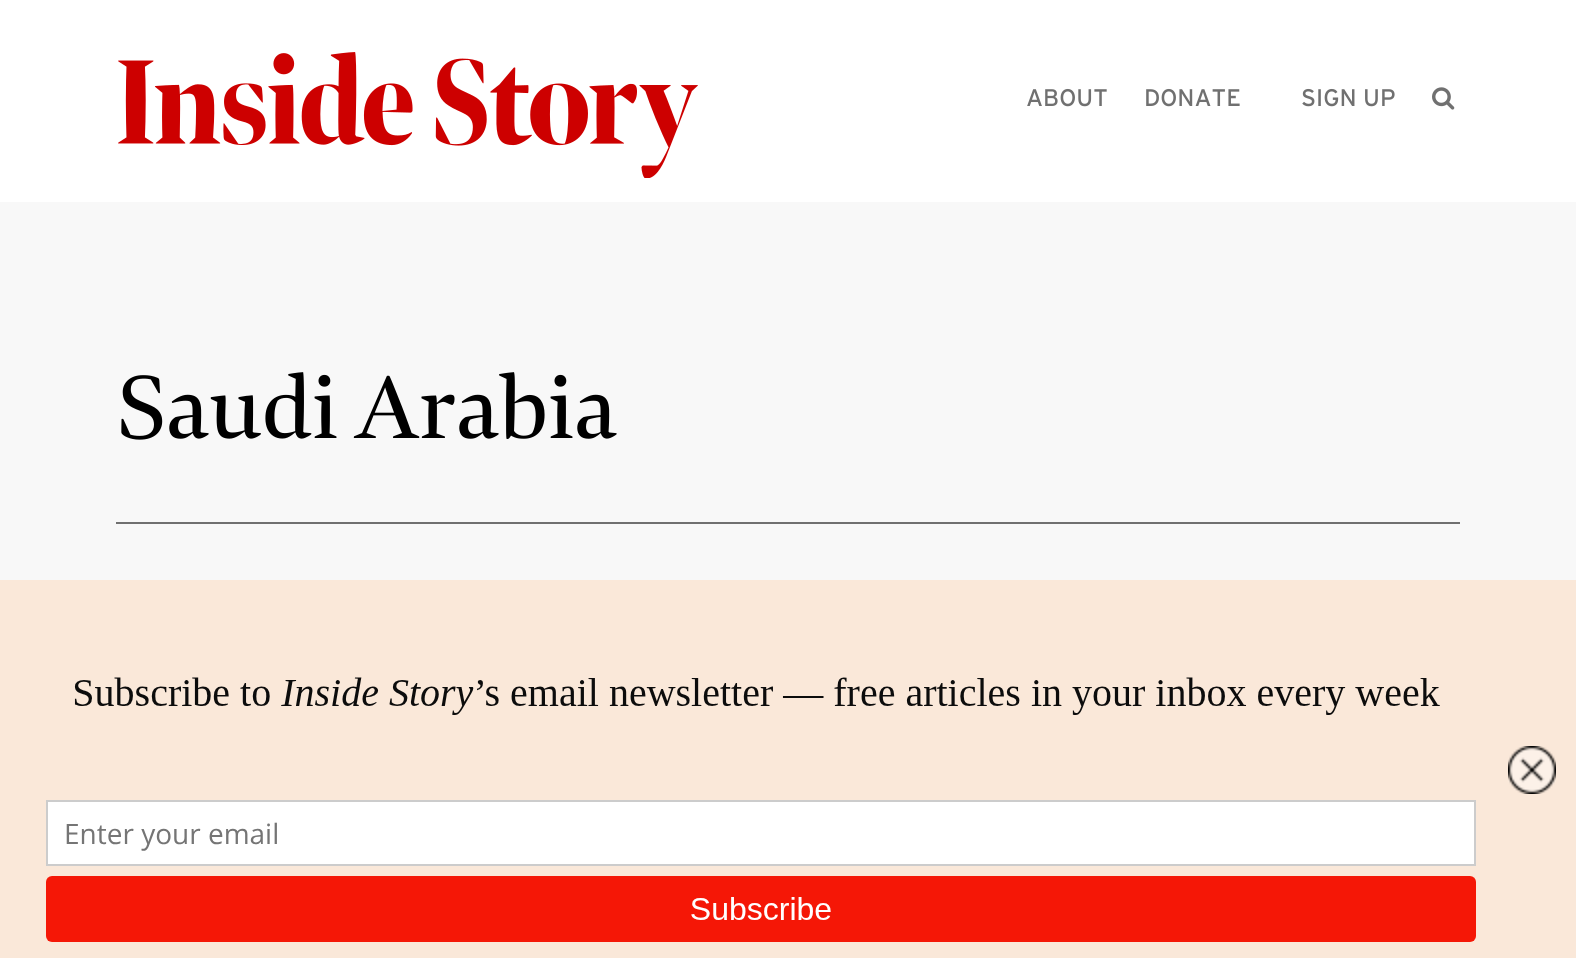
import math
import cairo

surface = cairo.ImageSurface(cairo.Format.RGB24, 1576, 958)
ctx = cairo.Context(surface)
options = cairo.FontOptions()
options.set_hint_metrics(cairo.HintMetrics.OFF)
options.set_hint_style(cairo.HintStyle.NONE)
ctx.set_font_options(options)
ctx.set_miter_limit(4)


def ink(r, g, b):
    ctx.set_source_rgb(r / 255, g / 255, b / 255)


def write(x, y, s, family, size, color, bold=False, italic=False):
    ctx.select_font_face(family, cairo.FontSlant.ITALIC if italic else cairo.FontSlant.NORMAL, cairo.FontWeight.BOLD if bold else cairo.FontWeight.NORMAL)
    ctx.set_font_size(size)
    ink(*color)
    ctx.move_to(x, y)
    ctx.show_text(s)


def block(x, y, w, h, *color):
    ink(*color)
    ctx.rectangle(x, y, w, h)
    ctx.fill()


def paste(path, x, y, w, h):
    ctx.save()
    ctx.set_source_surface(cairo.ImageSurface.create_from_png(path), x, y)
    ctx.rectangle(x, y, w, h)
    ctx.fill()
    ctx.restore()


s1 = dict(family="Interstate", size=24, color=(112, 112, 112))
s2 = dict(family="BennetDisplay", size=92, color=(0, 0, 0))

ink(248, 248, 248)
ctx.paint()
block(0, 0, 1576, 202, 255, 255, 255)
paste("pic1.png", 118, 52, 580, 126)
write(1026, 106, "ABOUT", **s1)
write(1144, 106, "DONATE", **s1)
write(1301, 106, "SIGN UP", **s1)
paste("pic2.png", 1432, 87, 23, 23)
block(116, 522, 1344, 2, 112, 112, 112)
write(116, 438, "Saudi Arabia", **s2)
paste("pic3.png", 0, 580, 1576, 378)
surface.write_to_png("screenshot.png")
